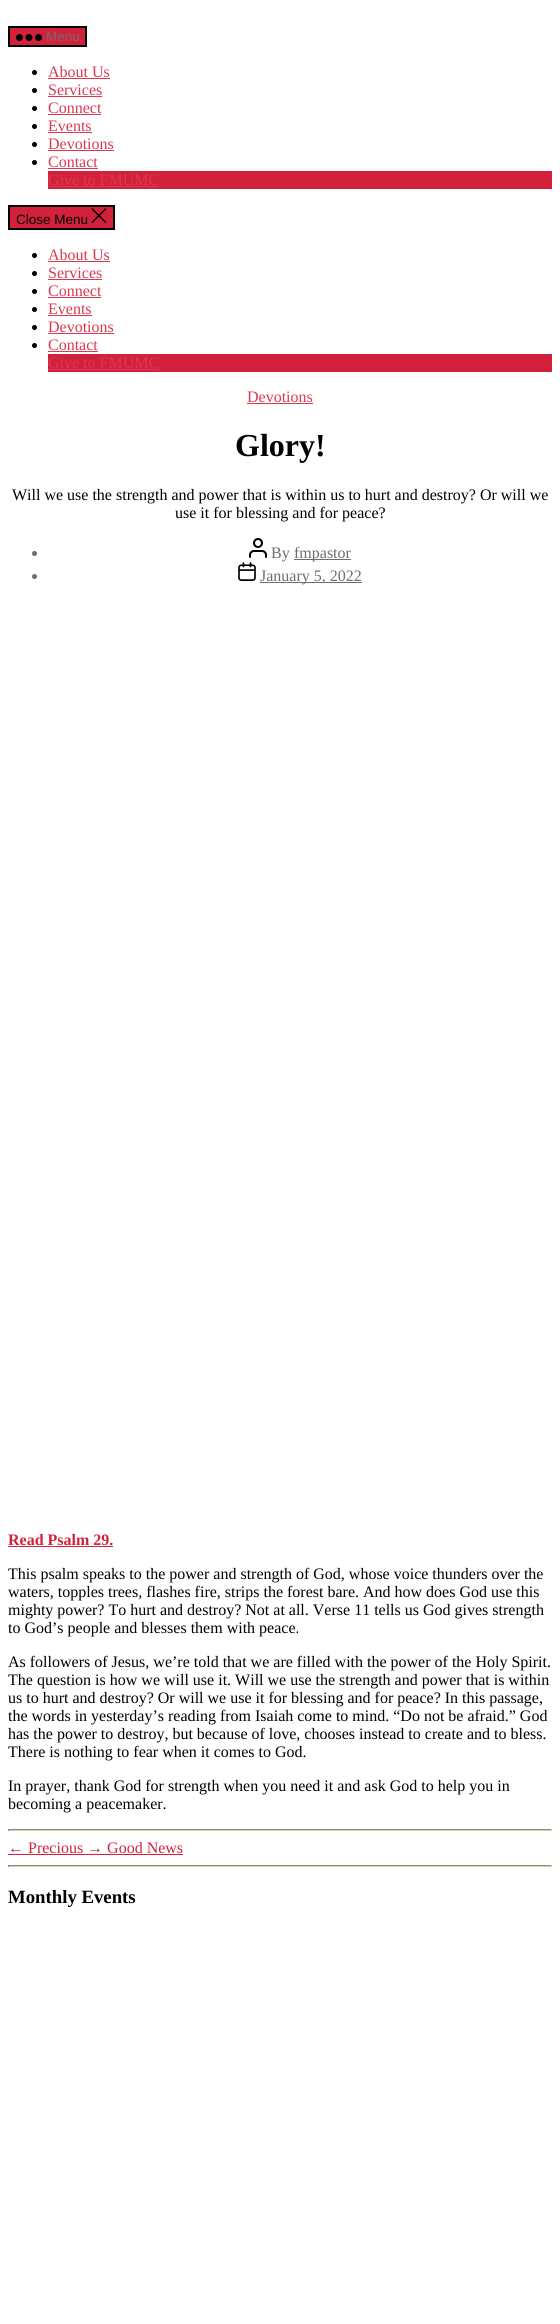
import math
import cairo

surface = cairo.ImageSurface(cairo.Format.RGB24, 560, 2324)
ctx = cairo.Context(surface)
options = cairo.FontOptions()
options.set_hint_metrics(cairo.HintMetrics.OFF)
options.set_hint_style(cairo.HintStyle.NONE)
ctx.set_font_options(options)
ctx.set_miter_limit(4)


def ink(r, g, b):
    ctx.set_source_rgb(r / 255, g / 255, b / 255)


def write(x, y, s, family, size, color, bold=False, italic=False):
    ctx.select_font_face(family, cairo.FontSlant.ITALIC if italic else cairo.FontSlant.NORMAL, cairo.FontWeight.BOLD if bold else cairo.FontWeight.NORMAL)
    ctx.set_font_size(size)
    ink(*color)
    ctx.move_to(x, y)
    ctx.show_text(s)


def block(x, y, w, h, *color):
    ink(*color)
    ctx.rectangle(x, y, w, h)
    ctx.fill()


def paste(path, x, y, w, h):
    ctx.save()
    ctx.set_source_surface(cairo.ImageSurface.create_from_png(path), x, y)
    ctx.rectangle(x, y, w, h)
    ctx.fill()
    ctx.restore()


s1 = dict(family="Liberation Sans", size=13.5, color=(109, 109, 109))
s2 = dict(family="Liberation Serif", size=16, color=(218, 56, 81))
s3 = dict(family="Liberation Sans", size=13.5, color=(0, 0, 0))
s4 = dict(family="Liberation Serif", size=32, color=(0, 0, 0), bold=True)
s5 = dict(family="Liberation Serif", size=16, color=(0, 0, 0))
s6 = dict(family="Liberation Serif", size=16, color=(109, 109, 109))
s7 = dict(family="Liberation Serif", size=16, color=(211, 33, 59), bold=True)
s8 = dict(family="Liberation Serif", size=16, color=(211, 33, 59))
s9 = dict(family="Liberation Serif", size=18.75, color=(0, 0, 0), bold=True)

ink(255, 255, 255)
ctx.paint()
ink(211, 33, 59)
ctx.rectangle(9, 27, 77, 19)
ctx.fill_preserve()
ink(0, 0, 0)
ctx.stroke()
paste("pic1.png", 16, 34, 26, 7)
write(46, 41, "Menu", **s1)
ink(0, 0, 0)
ctx.new_path()
ctx.arc(34.5, 72.5, 2.5, 0, 2 * math.pi)
ctx.fill()
write(48, 77, "About Us", **s2)
block(48, 78, 62, 1, 218, 56, 81)
ink(0, 0, 0)
ctx.new_path()
ctx.arc(34.5, 90.5, 2.5, 0, 2 * math.pi)
ctx.fill()
write(48, 95, "Services", **s2)
block(48, 96, 54, 1, 218, 56, 81)
ink(0, 0, 0)
ctx.new_path()
ctx.arc(34.5, 108.5, 2.5, 0, 2 * math.pi)
ctx.fill()
write(48, 113, "Connect", **s2)
block(48, 114, 53, 1, 218, 56, 81)
ink(0, 0, 0)
ctx.new_path()
ctx.arc(34.5, 126.5, 2.5, 0, 2 * math.pi)
ctx.fill()
write(48, 131, "Events", **s2)
block(48, 132, 44, 1, 218, 56, 81)
ink(0, 0, 0)
ctx.new_path()
ctx.arc(34.5, 144.5, 2.5, 0, 2 * math.pi)
ctx.fill()
write(48, 149, "Devotions", **s2)
block(48, 150, 66, 1, 218, 56, 81)
ink(0, 0, 0)
ctx.new_path()
ctx.arc(34.5, 162.5, 2.5, 0, 2 * math.pi)
ctx.fill()
write(48, 167, "Contact", **s2)
block(48, 168, 50, 1, 218, 56, 81)
block(48, 171, 504, 18, 211, 33, 59)
write(48, 185, "Give to FMUMC", **s2)
block(48, 186, 111, 1, 218, 56, 81)
ink(211, 33, 59)
ctx.rectangle(9, 206, 105, 23)
ctx.fill_preserve()
ink(0, 0, 0)
ctx.stroke()
write(16, 224, "Close Menu", **s3)
paste("pic2.png", 91, 208, 16, 15)
ctx.arc(34.5, 255.5, 2.5, 0, 2 * math.pi)
ctx.fill()
write(48, 260, "About Us", **s2)
block(48, 261, 62, 1, 218, 56, 81)
ink(0, 0, 0)
ctx.new_path()
ctx.arc(34.5, 273.5, 2.5, 0, 2 * math.pi)
ctx.fill()
write(48, 278, "Services", **s2)
block(48, 279, 54, 1, 218, 56, 81)
ink(0, 0, 0)
ctx.new_path()
ctx.arc(34.5, 291.5, 2.5, 0, 2 * math.pi)
ctx.fill()
write(48, 296, "Connect", **s2)
block(48, 297, 53, 1, 218, 56, 81)
ink(0, 0, 0)
ctx.new_path()
ctx.arc(34.5, 309.5, 2.5, 0, 2 * math.pi)
ctx.fill()
write(48, 314, "Events", **s2)
block(48, 315, 44, 1, 218, 56, 81)
ink(0, 0, 0)
ctx.new_path()
ctx.arc(34.5, 327.5, 2.5, 0, 2 * math.pi)
ctx.fill()
write(48, 332, "Devotions", **s2)
block(48, 333, 66, 1, 218, 56, 81)
ink(0, 0, 0)
ctx.new_path()
ctx.arc(34.5, 345.5, 2.5, 0, 2 * math.pi)
ctx.fill()
write(48, 350, "Contact", **s2)
block(48, 351, 50, 1, 218, 56, 81)
block(48, 354, 504, 18, 211, 33, 59)
write(48, 368, "Give to FMUMC", **s2)
block(48, 369, 111, 1, 218, 56, 81)
write(247, 402, "Devotions", **s2)
block(247, 403, 66, 1, 218, 56, 81)
write(235, 456, "Glory!", **s4)
write(12, 500, "Will we use the strength and power that is within us to hurt and destroy? Or will we", **s5)
write(175, 518, "use it for blessing and for peace?", **s5)
ink(109, 109, 109)
ctx.new_path()
ctx.arc(34.5, 553.5, 2.5, 0, 2 * math.pi)
ctx.fill()
paste("pic3.png", 249, 538, 18, 20)
write(271, 558, "By", **s6)
block(294, 559, 57, 1, 109, 109, 109)
write(294, 558, "fmpastor", **s6)
ctx.new_path()
ctx.arc(34.5, 576.5, 2.5, 0, 2 * math.pi)
ctx.fill()
paste("pic4.png", 238, 562, 18, 19)
block(260, 582, 102, 1, 109, 109, 109)
write(260, 581, "January 5, 2022", **s6)
write(8, 1545, "Read Psalm 29.", **s7)
block(8, 1546, 105, 1, 211, 33, 59)
write(8, 1579, "This psalm speaks to the power and strength of God, whose voice thunders over the", **s5)
write(8, 1597, "waters, topples trees, flashes fire, strips the forest bare. And how does God use this", **s5)
write(8, 1615, "mighty power? To hurt and destroy? Not at all. Verse 11 tells us God gives strength", **s5)
write(8, 1633, "to God’s people and blesses them with peace.", **s5)
write(8, 1667, "As followers of Jesus, we’re told that we are filled with the power of the Holy Spirit.", **s5)
write(8, 1685, "The question is how we will use it. Will we use the strength and power that is within", **s5)
write(8, 1703, "us to hurt and destroy? Or will we use it for blessing and for peace? In this passage,", **s5)
write(8, 1721, "the words in yesterday’s reading from Isaiah come to mind. “Do not be afraid.” God", **s5)
write(8, 1739, "has the power to destroy, but because of love, chooses instead to create and to bless.", **s5)
write(8, 1757, "There is nothing to fear when it comes to God.", **s5)
write(8, 1791, "In prayer, thank God for strength when you need it and ask God to help you in", **s5)
write(8, 1809, "becoming a peacemaker.", **s5)
block(8, 1829, 544, 1, 143, 138, 114)
block(551, 1829, 1, 2, 215, 207, 171)
block(8, 1830, 544, 1, 215, 207, 171)
block(8, 1829, 1, 2, 143, 138, 114)
write(8, 1853, "← Precious → Good News", **s8)
block(8, 1854, 175, 1, 211, 33, 59)
block(8, 1865, 544, 1, 143, 138, 114)
block(551, 1865, 1, 2, 215, 207, 171)
block(8, 1866, 544, 1, 215, 207, 171)
block(8, 1865, 1, 2, 143, 138, 114)
write(8, 1903, "Monthly Events", **s9)
surface.write_to_png("screenshot.png")
